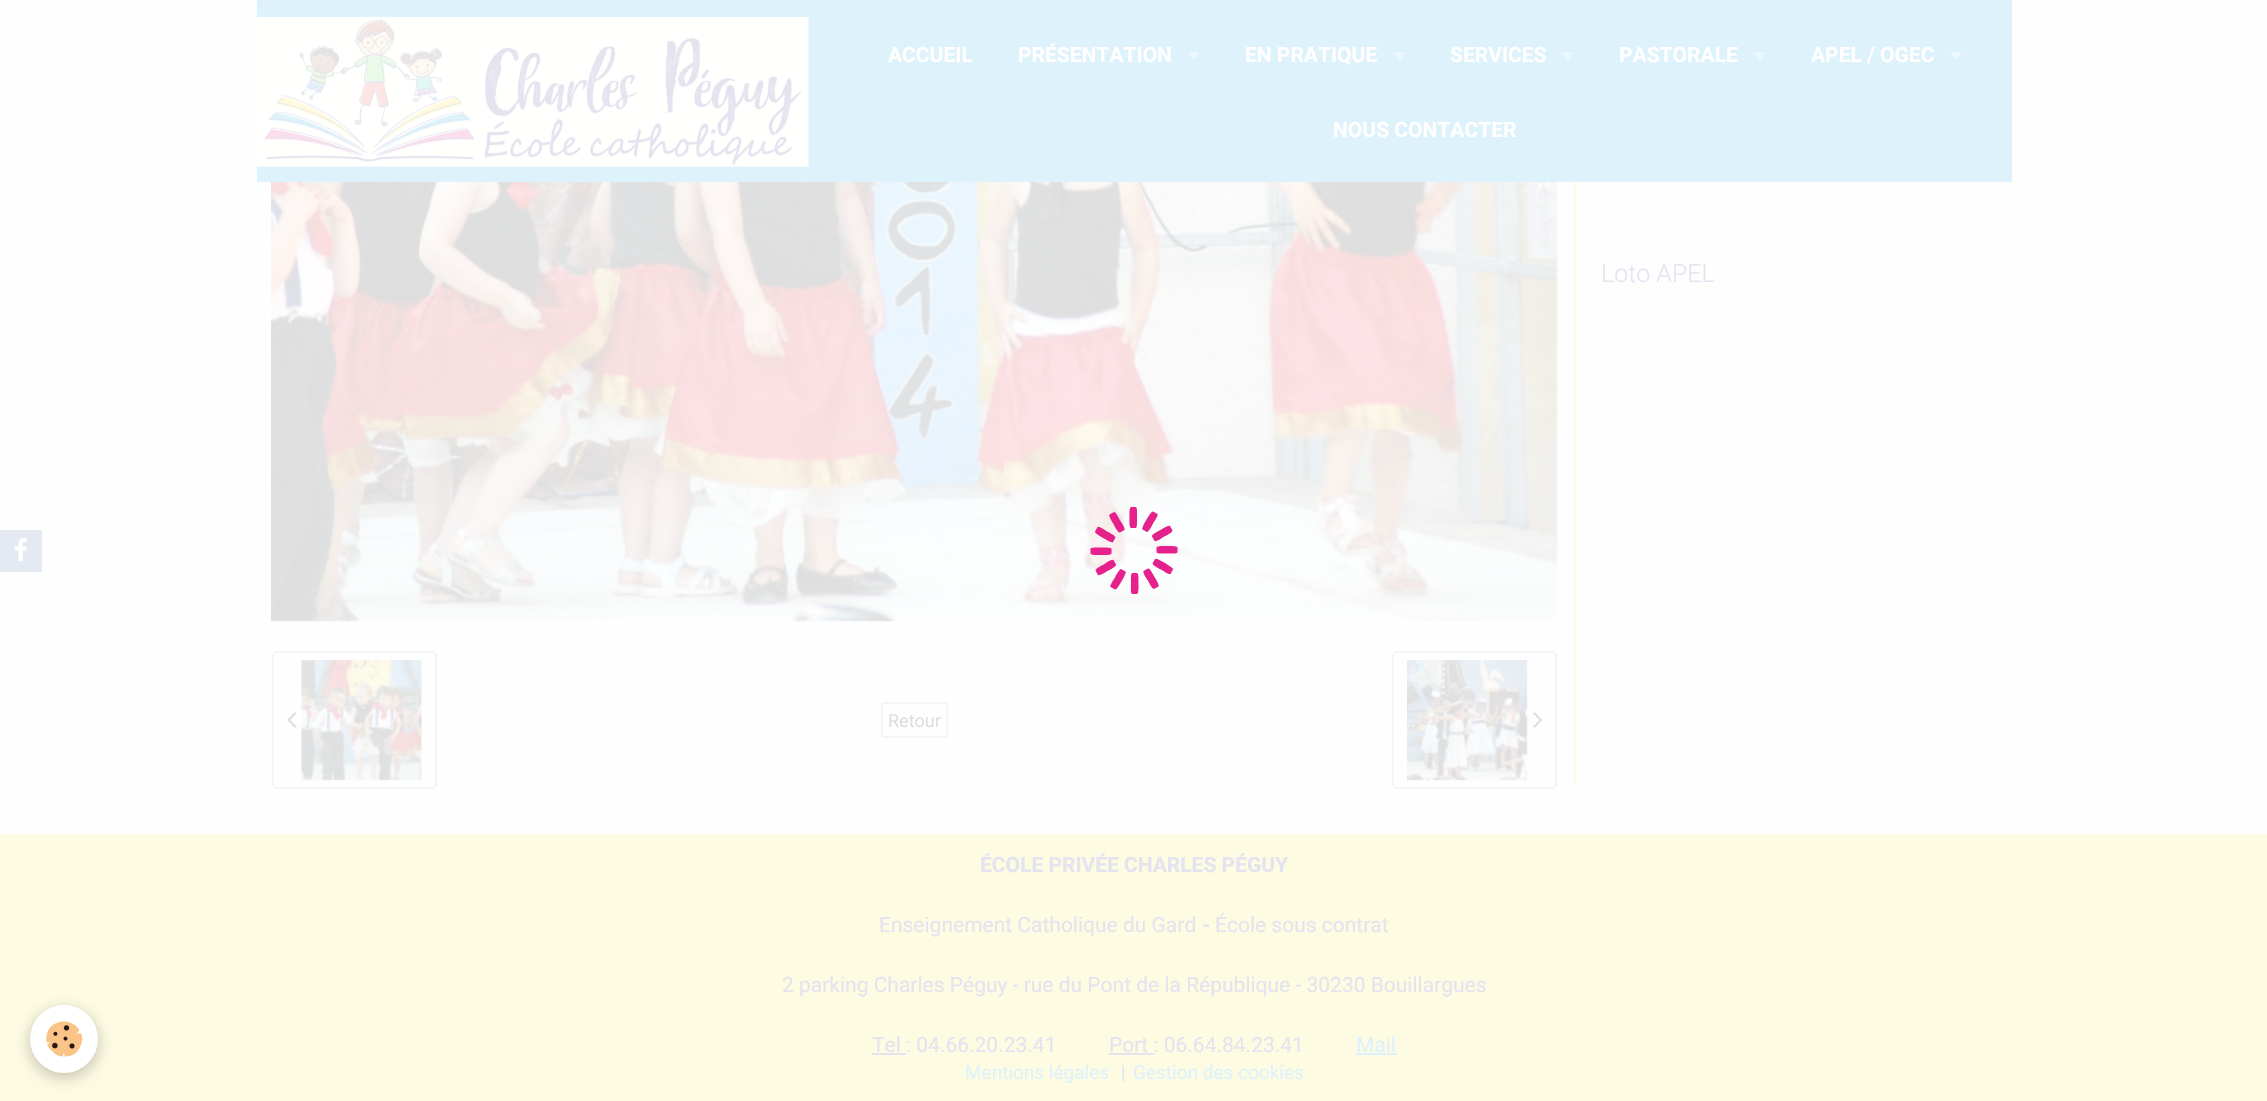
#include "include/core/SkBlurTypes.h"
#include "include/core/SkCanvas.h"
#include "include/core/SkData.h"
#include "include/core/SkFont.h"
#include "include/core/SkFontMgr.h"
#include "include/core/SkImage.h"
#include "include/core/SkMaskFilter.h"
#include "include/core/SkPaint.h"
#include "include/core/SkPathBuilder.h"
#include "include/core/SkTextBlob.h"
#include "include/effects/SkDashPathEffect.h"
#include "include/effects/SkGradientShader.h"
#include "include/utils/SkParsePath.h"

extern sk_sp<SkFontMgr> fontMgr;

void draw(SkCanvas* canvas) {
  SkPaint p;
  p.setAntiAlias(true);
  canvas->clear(SkColorSetRGB(254, 254, 254));
  p.setColor(SkColorSetRGB(222, 242, 251));
  canvas->drawRect(SkRect::MakeLTRB(257, 2, 2012, 182), p);
  p.setColor(SkColorSetRGB(222, 240, 248));
  canvas->drawRect(SkRect::MakeLTRB(257, 0, 2012, 2), p);
  canvas->drawImageRect(SkImages::DeferredFromEncodedData(SkData::MakeFromFileName("images/1.png")), SkRect::MakeLTRB(256, 17, 809, 167), SkSamplingOptions());
  p.setColor(SkColorSetRGB(238, 249, 253));
  canvas->drawPath(SkPathBuilder().moveTo(1188, 52.5f).lineTo(1200, 52.5f).lineTo(1194, 60).close().detach(), p);
  canvas->drawPath(SkPathBuilder().moveTo(1393.5f, 52.5f).lineTo(1405.5f, 52.5f).lineTo(1399.5f, 60).close().detach(), p);
  canvas->drawPath(SkPathBuilder().moveTo(1561.5f, 52.5f).lineTo(1573.5f, 52.5f).lineTo(1567.5f, 60).close().detach(), p);
  canvas->drawPath(SkPathBuilder().moveTo(1753.5f, 52.5f).lineTo(1765.5f, 52.5f).lineTo(1759.5f, 60).close().detach(), p);
  canvas->drawPath(SkPathBuilder().moveTo(1950, 52.5f).lineTo(1962, 52.5f).lineTo(1956, 60).close().detach(), p);
  p.setColor(SkColorSetRGB(254, 251, 227));
  canvas->drawRect(SkRect::MakeLTRB(1574, 182, 1576, 785), p);
  canvas->drawImageRect(SkImages::DeferredFromEncodedData(SkData::MakeFromFileName("images/2.png")), SkRect::MakeLTRB(271, 182, 1558, 622), SkSamplingOptions());
  canvas->drawImageRect(SkImages::DeferredFromEncodedData(SkData::MakeFromFileName("images/3.png")), SkRect::MakeLTRB(287, 712, 297, 728), SkSamplingOptions());
  canvas->drawImageRect(SkImages::DeferredFromEncodedData(SkData::MakeFromFileName("images/4.png")), SkRect::MakeLTRB(301, 660, 422, 781), SkSamplingOptions());
  p.setStyle(SkPaint::kStroke_Style);
  p.setStrokeWidth(2);
  p.setColor(SkColorSetRGB(245, 245, 245));
  canvas->drawRoundRect(SkRect::MakeLTRB(273, 652, 436, 788), 4, 4, p);
  canvas->drawRoundRect(SkRect::MakeLTRB(882, 703, 947, 737), 2, 2, p);
  canvas->drawImageRect(SkImages::DeferredFromEncodedData(SkData::MakeFromFileName("images/5.png")), SkRect::MakeLTRB(1407, 660, 1528, 781), SkSamplingOptions());
  canvas->drawImageRect(SkImages::DeferredFromEncodedData(SkData::MakeFromFileName("images/6.png")), SkRect::MakeLTRB(1533, 712, 1543, 728), SkSamplingOptions());
  canvas->drawRoundRect(SkRect::MakeLTRB(1393, 652, 1556, 788), 4, 4, p);
  p.setStyle(SkPaint::kFill_Style);
  p.setColor(SkColorSetRGB(229, 233, 242));
  canvas->drawRect(SkRect::MakeLTRB(0, 530, 42, 572), p);
  canvas->drawImageRect(SkImages::DeferredFromEncodedData(SkData::MakeFromFileName("images/7.png")), SkRect::MakeLTRB(14, 537, 27, 562), SkSamplingOptions());
  p.setColor(SkColorSetRGB(229, 34, 140));
  canvas->drawPath(SkPathBuilder().moveTo(1115, 589.5f).lineTo(1110.5f, 587).cubicTo(1109.5f, 585.5f, 1114, 579, 1115, 577.5f).cubicTo(1115.5f, 576.5f, 1119, 569, 1121, 569).lineTo(1125.5f, 571.5f).cubicTo(1127, 572.5f, 1122, 580.5f, 1121.5f, 581.5f).cubicTo(1121, 582, 1116.5f, 590.5f, 1115, 589.5f).close().detach(), p);
  p.setColor(SkColorSetARGB(222, 226, 1, 123));
  canvas->drawPath(SkPathBuilder().moveTo(1098, 575).lineTo(1095.5f, 570.5f).cubicTo(1095.5f, 568.5f, 1102.5f, 565, 1104, 564.5f).cubicTo(1105, 563.5f, 1111.5f, 559, 1113.5f, 560).lineTo(1116, 564.5f).cubicTo(1117, 566.5f, 1108.5f, 570.5f, 1107.5f, 571).cubicTo(1107, 571.5f, 1099, 576.5f, 1098, 575).close().moveTo(1090.5f, 553.5f).lineTo(1090.5f, 548.5f).cubicTo(1091.5f, 547, 1099.5f, 547.5f, 1101, 547.5f).cubicTo(1102.5f, 547.5f, 1110.5f, 547, 1111.5f, 548.5f).lineTo(1111.5f, 553.5f).cubicTo(1111.5f, 555.5f, 1102, 555, 1101, 555).cubicTo(1100, 555, 1090.5f, 555.5f, 1090.5f, 553.5f).close().moveTo(1095, 531.5f).lineTo(1097.5f, 527).cubicTo(1099, 526, 1105.5f, 530.5f, 1107, 531.5f).cubicTo(1108, 532, 1115.5f, 535.5f, 1115.5f, 537.5f).lineTo(1113, 542).cubicTo(1112, 543.5f, 1104, 538.5f, 1103, 538).cubicTo(1102.5f, 537.5f, 1094, 533, 1095, 531.5f).close().detach(), p);
  canvas->drawPath(SkPathBuilder().moveTo(1109.5f, 514.5f).lineTo(1114, 512).cubicTo(1116, 512, 1119.5f, 519, 1120, 520.5f).cubicTo(1121, 521.5f, 1125.5f, 528, 1124.5f, 530).lineTo(1120, 532.5f).cubicTo(1118, 533.5f, 1114, 525, 1113.5f, 524).cubicTo(1113, 523.5f, 1108, 515.5f, 1109.5f, 514.5f).close().detach(), p);
  canvas->drawPath(SkPathBuilder().moveTo(1131, 507).lineTo(1136, 507).cubicTo(1137.5f, 508, 1137, 516, 1137, 517.5f).cubicTo(1137, 519, 1137.5f, 527, 1136, 528).lineTo(1131, 528).cubicTo(1129, 528, 1129.5f, 518.5f, 1129.5f, 517.5f).cubicTo(1129.5f, 516.5f, 1129, 507, 1131, 507).close().detach(), p);
  p.setColor(SkColorSetRGB(229, 34, 140));
  canvas->drawPath(SkPathBuilder().moveTo(1153, 511.5f).lineTo(1157.5f, 514).cubicTo(1158.5f, 515.5f, 1154, 522, 1153, 523.5f).cubicTo(1152.5f, 524.5f, 1149, 532, 1147, 532).lineTo(1142.5f, 529.5f).cubicTo(1141, 528.5f, 1146, 520.5f, 1146.5f, 519.5f).cubicTo(1147, 519, 1151.5f, 510.5f, 1153, 511.5f).close().detach(), p);
  canvas->drawPath(SkPathBuilder().moveTo(1170, 526).lineTo(1172.5f, 530.5f).cubicTo(1172.5f, 532.5f, 1165.5f, 536, 1164, 536.5f).cubicTo(1163, 537.5f, 1156.5f, 542, 1154.5f, 541).lineTo(1152, 536.5f).cubicTo(1151, 534.5f, 1159.5f, 530.5f, 1160.5f, 530).cubicTo(1161, 529.5f, 1169, 524.5f, 1170, 526).close().detach(), p);
  p.setColor(SkColorSetARGB(222, 226, 1, 123));
  canvas->drawPath(SkPathBuilder().moveTo(1177.5f, 547.5f).lineTo(1177.5f, 552.5f).cubicTo(1176.5f, 554, 1168.5f, 553.5f, 1167, 553.5f).cubicTo(1165.5f, 553.5f, 1157.5f, 554, 1156.5f, 552.5f).lineTo(1156.5f, 547.5f).cubicTo(1156.5f, 545.5f, 1166, 546, 1167, 546).cubicTo(1168, 546, 1177.5f, 545.5f, 1177.5f, 547.5f).close().detach(), p);
  canvas->drawPath(SkPathBuilder().moveTo(1137, 594).lineTo(1132, 594).cubicTo(1130.5f, 593, 1131, 585, 1131, 583.5f).cubicTo(1131, 582, 1130.5f, 574, 1132, 573).lineTo(1137, 573).cubicTo(1139, 573, 1138.5f, 582.5f, 1138.5f, 583.5f).cubicTo(1138.5f, 584.5f, 1139, 594, 1137, 594).close().detach(), p);
  p.setColor(SkColorSetRGB(229, 34, 140));
  canvas->drawPath(SkPathBuilder().moveTo(1173, 569.5f).lineTo(1170.5f, 574).cubicTo(1169, 575, 1162.5f, 570.5f, 1161, 569.5f).cubicTo(1160, 569, 1152.5f, 565.5f, 1152.5f, 563.5f).lineTo(1155, 559).cubicTo(1156, 557.5f, 1164, 562.5f, 1165, 563).cubicTo(1165.5f, 563.5f, 1174, 568, 1173, 569.5f).close().detach(), p);
  canvas->drawPath(SkPathBuilder().moveTo(1158.5f, 586.5f).lineTo(1154, 589).cubicTo(1152, 589, 1148.5f, 582, 1148, 580.5f).cubicTo(1147, 579.5f, 1142.5f, 573, 1143.5f, 571).lineTo(1148, 568.5f).cubicTo(1150, 567.5f, 1154, 576, 1154.5f, 577).cubicTo(1155, 577.5f, 1160, 585.5f, 1158.5f, 586.5f).close().detach(), p);
  p.setColor(SkColorSetRGB(254, 251, 227));
  canvas->drawRect(SkRect::MakeLTRB(0, 834, 2267, 1101), p);
  p.setColor(SkColorSetARGB(61, 0, 0, 0));
  p.setMaskFilter(SkMaskFilter::MakeBlur(kNormal_SkBlurStyle, 7.5f));
  canvas->drawRoundRect(SkRect::MakeLTRB(30, 1010, 98, 1077), 33.5f, 33.5f, p);
  p.setMaskFilter(nullptr);
  p.setColor(SK_ColorWHITE);
  canvas->drawCircle(64, 1039, 34, p);
  canvas->drawImageRect(SkImages::DeferredFromEncodedData(SkData::MakeFromFileName("images/8.png")), SkRect::MakeLTRB(46, 1021, 83, 1057), SkSamplingOptions());
  p.setColor(SkColorSetRGB(227, 228, 239));
  canvas->drawRect(SkRect::MakeLTRB(872, 1053, 906, 1055), p);
  canvas->drawRect(SkRect::MakeLTRB(1109, 1053, 1154, 1055), p);
  p.setColor(SkColorSetRGB(222, 242, 251));
  canvas->drawRect(SkRect::MakeLTRB(1356, 1053, 1397, 1055), p);
  SkFont font1(fontMgr->matchFamilyStyle("Roboto", SkFontStyle::Bold()), 21);
  font1.setSubpixel(true);
  p.setColor(SK_ColorWHITE);
  canvas->drawString("ACCUEIL", 888, 62, font1, p);
  canvas->drawString("PRÉSENTATION", 1018, 62, font1, p);
  canvas->drawString("EN PRATIQUE", 1245, 62, font1, p);
  canvas->drawString("SERVICES", 1450, 62, font1, p);
  canvas->drawString("PASTORALE", 1619, 62, font1, p);
  canvas->drawString("APEL / OGEC", 1811, 62, font1, p);
  canvas->drawString("NOUS CONTACTER", 1333, 137, font1, p);
  SkFont font2(fontMgr->matchFamilyStyle("Roboto", SkFontStyle(300, SkFontStyle::kNormal_Width, SkFontStyle::kUpright_Slant)), 25);
  font2.setSubpixel(true);
  p.setColor(SkColorSetRGB(227, 228, 239));
  canvas->drawString("Loto APEL", 1601, 282, font2, p);
  SkFont font3(fontMgr->matchFamilyStyle("Roboto", SkFontStyle::Normal()), 18);
  font3.setSubpixel(true);
  p.setColor(SkColorSetRGB(222, 222, 222));
  canvas->drawString("Retour", 888, 727, font3, p);
  p.setColor(SkColorSetRGB(227, 228, 239));
  canvas->drawString("ÉCOLE PRIVÉE CHARLES PÉGUY", 980, 872, font1, p);
  SkFont font4(fontMgr->matchFamilyStyle("Roboto", SkFontStyle::Normal()), 21);
  font4.setSubpixel(true);
  canvas->drawString("Enseignement Catholique du Gard", 879, 932, font4, p);
  canvas->drawString("-", 1202, 932, font1, p);
  canvas->drawString("École sous contrat", 1215, 932, font4, p);
  canvas->drawString("2 parking Charles Péguy - rue du Pont de la République - 30230 Bouillargues", 782, 992, font4, p);
  canvas->drawString("Tel : 04.66.20.23.41", 872, 1052, font4, p);
  canvas->drawString("Port : 06.64.84.23.41", 1109, 1052, font4, p);
  p.setColor(SkColorSetRGB(222, 242, 251));
  canvas->drawString("Mail", 1356, 1052, font4, p);
  SkFont font5(fontMgr->matchFamilyStyle("Roboto", SkFontStyle::Normal()), 19);
  font5.setSubpixel(true);
  canvas->drawString("Mentions légales", 965, 1079, font5, p);
  p.setColor(SkColorSetRGB(227, 228, 239));
  canvas->drawString("|", 1121, 1079, font5, p);
  p.setColor(SkColorSetRGB(222, 242, 251));
  canvas->drawString("Gestion des cookies", 1133, 1079, font5, p);
}
